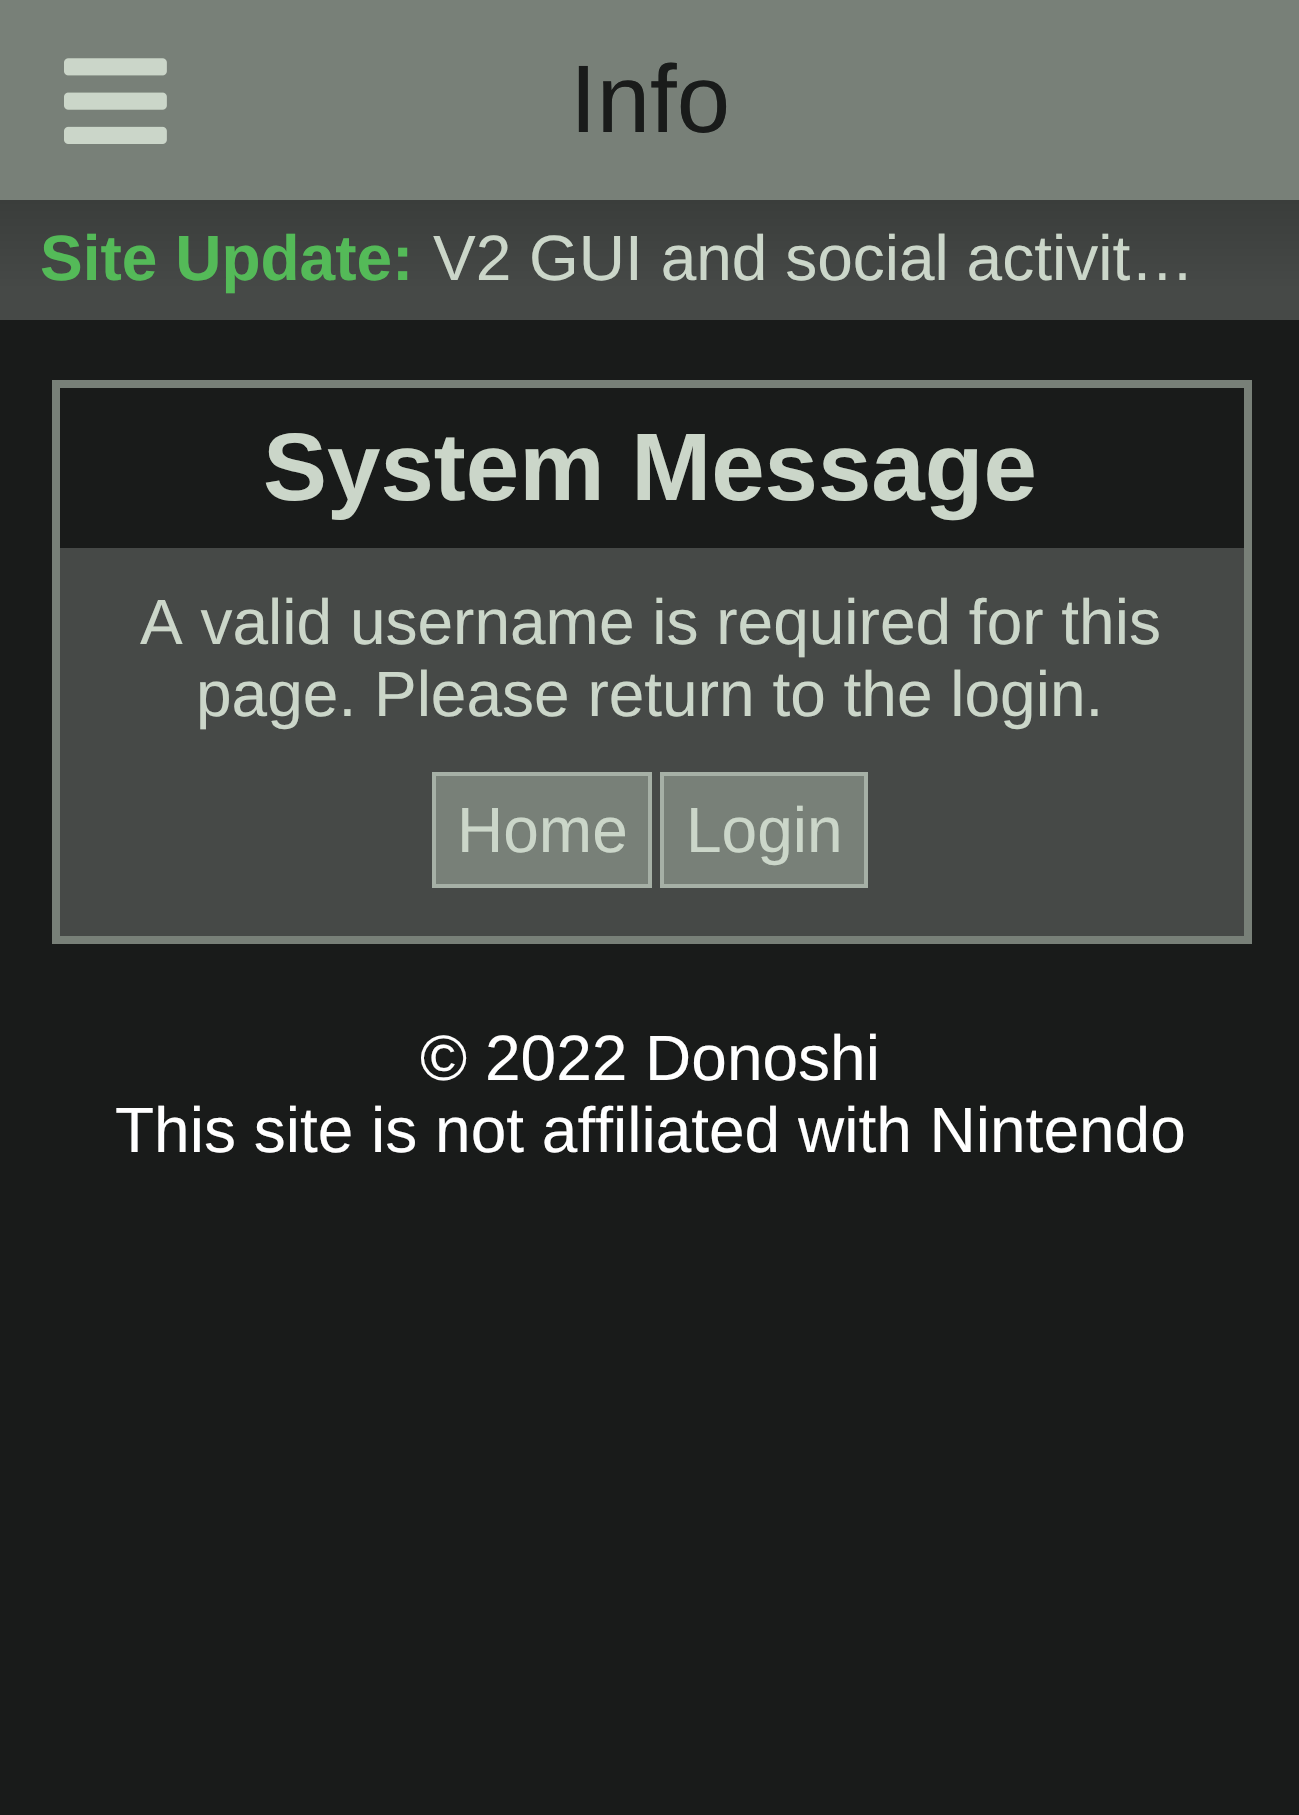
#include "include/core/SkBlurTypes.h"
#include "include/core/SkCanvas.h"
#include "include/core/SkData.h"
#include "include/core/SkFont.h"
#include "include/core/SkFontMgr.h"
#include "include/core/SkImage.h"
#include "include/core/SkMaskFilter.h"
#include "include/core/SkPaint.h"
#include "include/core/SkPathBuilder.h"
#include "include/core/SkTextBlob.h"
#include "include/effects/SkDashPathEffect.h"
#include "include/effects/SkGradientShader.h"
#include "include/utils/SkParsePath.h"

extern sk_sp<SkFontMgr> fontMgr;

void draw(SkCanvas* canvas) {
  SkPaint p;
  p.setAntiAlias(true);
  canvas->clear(SkColorSetRGB(25, 27, 26));
  p.setColor(SkColorSetRGB(120, 128, 120));
  canvas->drawRect(SkRect::MakeLTRB(0, 0, 1299, 200), p);
  canvas->drawImageRect(SkImages::DeferredFromEncodedData(SkData::MakeFromFileName("images/1.png")), SkRect::MakeLTRB(64, 58, 167, 144), SkSamplingOptions());
  {
    const SkColor colors[] = {SkColorSetRGB(58, 61, 59), SkColorSetRGB(70, 73, 71)};
    const float stops[] = {0, 0.75f};
    const SkPoint ends[] = {{650, 200}, {650, 320}};
    p.setShader(SkGradientShader::MakeLinear(ends, colors, stops, 2, SkTileMode::kClamp));
    p.setAlpha(255);
  }
  canvas->drawRect(SkRect::MakeLTRB(0, 200, 1299, 320), p);
  p.setShader(nullptr);
  p.setColor(SkColorSetRGB(70, 73, 71));
  canvas->drawRect(SkRect::MakeLTRB(60, 548, 1244, 936), p);
  p.setStyle(SkPaint::kStroke_Style);
  p.setStrokeWidth(8);
  p.setColor(SkColorSetRGB(120, 128, 120));
  canvas->drawRect(SkRect::MakeLTRB(56, 384, 1248, 940), p);
  p.setStyle(SkPaint::kFill_Style);
  canvas->drawRect(SkRect::MakeLTRB(436, 776, 648, 884), p);
  p.setStyle(SkPaint::kStroke_Style);
  p.setStrokeWidth(4);
  p.setColor(SkColorSetRGB(166, 176, 166));
  canvas->drawRect(SkRect::MakeLTRB(434, 774, 650, 886), p);
  p.setStyle(SkPaint::kFill_Style);
  p.setColor(SkColorSetRGB(120, 128, 120));
  canvas->drawRect(SkRect::MakeLTRB(664, 776, 864, 884), p);
  p.setStyle(SkPaint::kStroke_Style);
  p.setColor(SkColorSetRGB(166, 176, 166));
  canvas->drawRect(SkRect::MakeLTRB(662, 774, 866, 886), p);
  SkFont font1(fontMgr->matchFamilyStyle("Liberation Sans", SkFontStyle::Normal()), 96);
  font1.setSubpixel(true);
  p.setStyle(SkPaint::kFill_Style);
  p.setColor(SkColorSetRGB(25, 27, 26));
  canvas->drawString("Info", 570, 132, font1, p);
  SkFont font2(fontMgr->matchFamilyStyle("Liberation Sans", SkFontStyle::Bold()), 64);
  font2.setSubpixel(true);
  p.setColor(SkColorSetRGB(84, 186, 88));
  canvas->drawString("Site Update:", 40, 280, font2, p);
  SkFont font3(fontMgr->matchFamilyStyle("Liberation Sans", SkFontStyle::Normal()), 64);
  font3.setSubpixel(true);
  p.setColor(SkColorSetRGB(203, 214, 201));
  canvas->drawString("V2 GUI and social activit…", 433, 280, font3, p);
  SkFont font4(fontMgr->matchFamilyStyle("Liberation Sans", SkFontStyle::Bold()), 96);
  font4.setSubpixel(true);
  canvas->drawString("System Message", 263, 500, font4, p);
  canvas->drawString("A valid username is required for this", 140, 644, font3, p);
  canvas->drawString("page. Please return to the login.", 196, 716, font3, p);
  canvas->drawString("Home", 457, 852, font3, p);
  canvas->drawString("Login", 686, 852, font3, p);
  p.setColor(SK_ColorWHITE);
  canvas->drawString("© 2022 Donoshi", 420, 1080, font3, p);
  canvas->drawString("This site is not affiliated with Nintendo", 115, 1152, font3, p);
}
